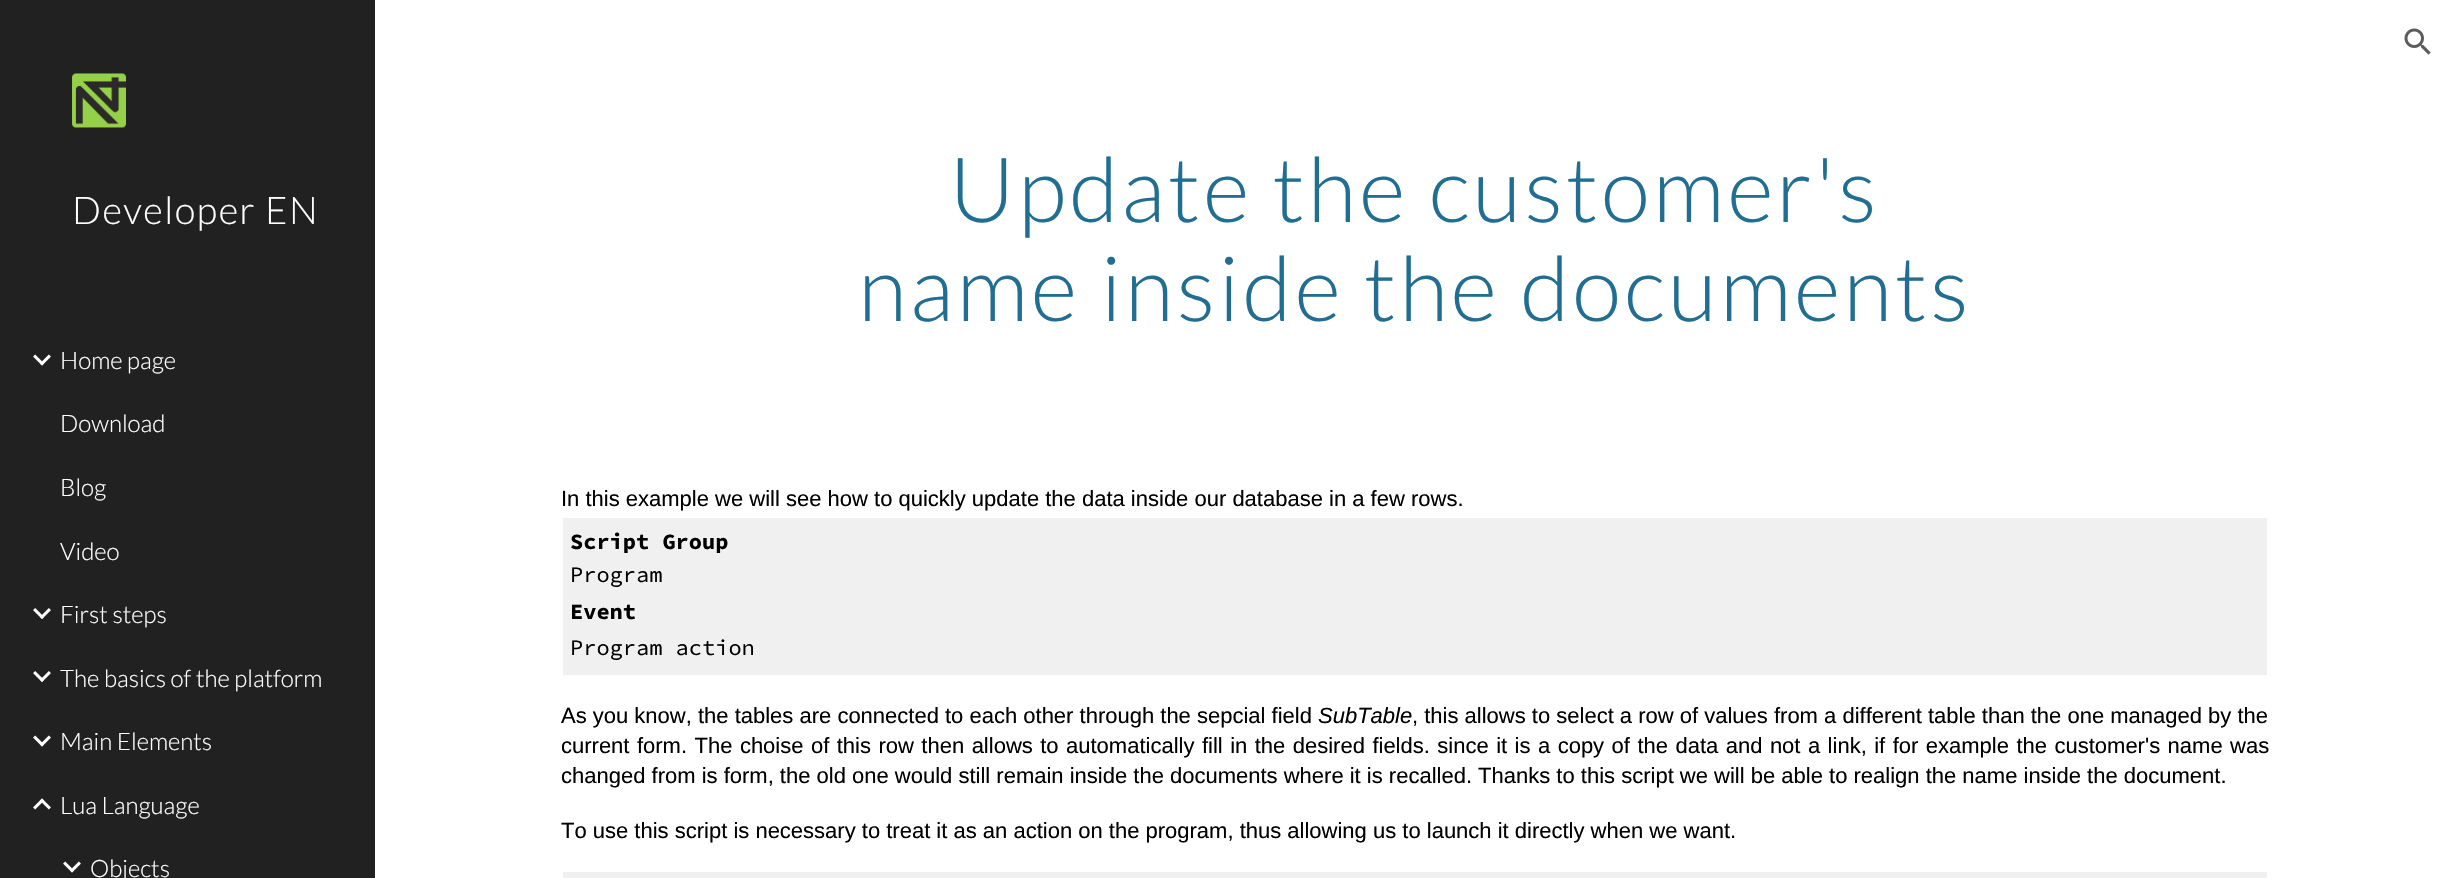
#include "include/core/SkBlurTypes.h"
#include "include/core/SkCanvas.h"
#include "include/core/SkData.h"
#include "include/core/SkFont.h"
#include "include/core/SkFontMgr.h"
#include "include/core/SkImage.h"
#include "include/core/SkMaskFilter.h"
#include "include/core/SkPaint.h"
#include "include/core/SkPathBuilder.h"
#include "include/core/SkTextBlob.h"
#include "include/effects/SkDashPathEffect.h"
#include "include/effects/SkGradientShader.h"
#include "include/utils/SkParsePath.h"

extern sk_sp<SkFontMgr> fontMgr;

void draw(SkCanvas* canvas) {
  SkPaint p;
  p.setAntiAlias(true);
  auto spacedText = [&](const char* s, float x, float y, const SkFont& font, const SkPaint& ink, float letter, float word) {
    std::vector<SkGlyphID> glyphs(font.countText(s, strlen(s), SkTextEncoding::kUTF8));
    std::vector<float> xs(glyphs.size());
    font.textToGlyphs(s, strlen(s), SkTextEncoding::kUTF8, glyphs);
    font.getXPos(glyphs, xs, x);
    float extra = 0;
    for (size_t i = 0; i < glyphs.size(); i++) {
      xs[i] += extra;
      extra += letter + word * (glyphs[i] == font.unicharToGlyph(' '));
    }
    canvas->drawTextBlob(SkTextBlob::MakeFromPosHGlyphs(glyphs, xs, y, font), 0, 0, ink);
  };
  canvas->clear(SK_ColorWHITE);
  canvas->drawImageRect(SkImages::DeferredFromEncodedData(SkData::MakeFromFileName("images/1.png")), SkRect::MakeLTRB(2404, 28, 2431, 55), SkSamplingOptions());
  p.setColor(SkColorSetRGB(33, 33, 33));
  canvas->drawRect(SkRect::MakeLTRB(0, 0, 375, 878), p);
  canvas->drawImageRect(SkImages::DeferredFromEncodedData(SkData::MakeFromFileName("images/2.png")), SkRect::MakeLTRB(72, 73, 126, 128), SkSamplingOptions());
  canvas->drawImageRect(SkImages::DeferredFromEncodedData(SkData::MakeFromFileName("images/3.png")), SkRect::MakeLTRB(33, 354, 51, 366), SkSamplingOptions());
  canvas->drawImageRect(SkImages::DeferredFromEncodedData(SkData::MakeFromFileName("images/4.png")), SkRect::MakeLTRB(33, 608, 51, 619), SkSamplingOptions());
  canvas->drawImageRect(SkImages::DeferredFromEncodedData(SkData::MakeFromFileName("images/4.png")), SkRect::MakeLTRB(33, 671, 51, 682), SkSamplingOptions());
  canvas->drawImageRect(SkImages::DeferredFromEncodedData(SkData::MakeFromFileName("images/3.png")), SkRect::MakeLTRB(33, 735, 51, 747), SkSamplingOptions());
  canvas->drawImageRect(SkImages::DeferredFromEncodedData(SkData::MakeFromFileName("images/5.png")), SkRect::MakeLTRB(33, 798, 51, 810), SkSamplingOptions());
  canvas->drawImageRect(SkImages::DeferredFromEncodedData(SkData::MakeFromFileName("images/3.png")), SkRect::MakeLTRB(63, 861, 81, 873), SkSamplingOptions());
  p.setColor(SkColorSetRGB(240, 240, 240));
  canvas->drawRect(SkRect::MakeLTRB(563, 518, 2267, 675), p);
  canvas->drawRect(SkRect::MakeLTRB(563, 872, 2267, 878), p);
  SkFont font1(fontMgr->matchFamilyStyle("Lato", SkFontStyle(300, SkFontStyle::kNormal_Width, SkFontStyle::kUpright_Slant)), 38);
  font1.setSubpixel(true);
  p.setColor(SK_ColorWHITE);
  spacedText("Developer EN", 72, 224, font1, p, 1.5f, 0);
  SkFont font2(fontMgr->matchFamilyStyle("Lato", SkFontStyle(300, SkFontStyle::kNormal_Width, SkFontStyle::kUpright_Slant)), 24);
  font2.setSubpixel(true);
  canvas->drawString("Home page", 60, 369, font2, p);
  canvas->drawString("Download", 60, 432, font2, p);
  canvas->drawString("Blog", 60, 496, font2, p);
  canvas->drawString("Video", 60, 560, font2, p);
  canvas->drawString("First steps", 60, 623, font2, p);
  canvas->drawString("The basics of the platform", 60, 687, font2, p);
  canvas->drawString("Main Elements", 60, 750, font2, p);
  canvas->drawString("Lua Language", 60, 814, font2, p);
  canvas->drawString("Objects", 90, 877, font2, p);
  SkFont font3(fontMgr->matchFamilyStyle("Lato", SkFontStyle(300, SkFontStyle::kNormal_Width, SkFontStyle::kUpright_Slant)), 90);
  font3.setSubpixel(true);
  p.setColor(SkColorSetRGB(34, 110, 147));
  spacedText("Update the customer's", 949, 222, font3, p, 3, 0);
  spacedText("name inside the documents", 858, 321, font3, p, 3, 0);
  SkFont font4(fontMgr->matchFamilyStyle("Liberation Sans", SkFontStyle::Normal()), 22);
  font4.setSubpixel(true);
  p.setColor(SK_ColorBLACK);
  canvas->drawString("In this example we will see how to quickly update the data inside our database in a few rows.", 561, 506, font4, p);
  SkFont font5(fontMgr->matchFamilyStyle("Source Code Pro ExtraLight", SkFontStyle::Bold()), 22);
  font5.setSubpixel(true);
  canvas->drawString("Script Group", 570, 549, font5, p);
  SkFont font6(fontMgr->matchFamilyStyle("Source Code Pro ExtraLight", SkFontStyle::Normal()), 22);
  font6.setSubpixel(true);
  canvas->drawString("Program", 570, 582, font6, p);
  canvas->drawString("Event", 570, 619, font5, p);
  canvas->drawString("Program action", 570, 655, font6, p);
  canvas->drawString("As you know, the tables are connected to each other through the sepcial field", 561, 723, font4, p);
  SkFont font7(fontMgr->matchFamilyStyle("Liberation Sans", SkFontStyle::Italic()), 22);
  font7.setSubpixel(true);
  canvas->drawString("SubTable", 1318, 723, font7, p);
  canvas->drawString(", this allows to select a row of values from a different table than the one managed by the", 1412, 723, font4, p);
  spacedText("current form. The choise of this row then allows to automatically fill in the desired fields. since it is a copy of the data and not a link, if for example the customer's name was", 561, 753, font4, p, 0, 1.35f);
  canvas->drawString("changed from is form, the old one would still remain inside the documents where it is recalled. Thanks to this script we will be able to realign the name inside the document.", 561, 783, font4, p);
  canvas->drawString("To use this script is necessary to treat it as an action on the program, thus allowing us to launch it directly when we want.", 561, 838, font4, p);
}
